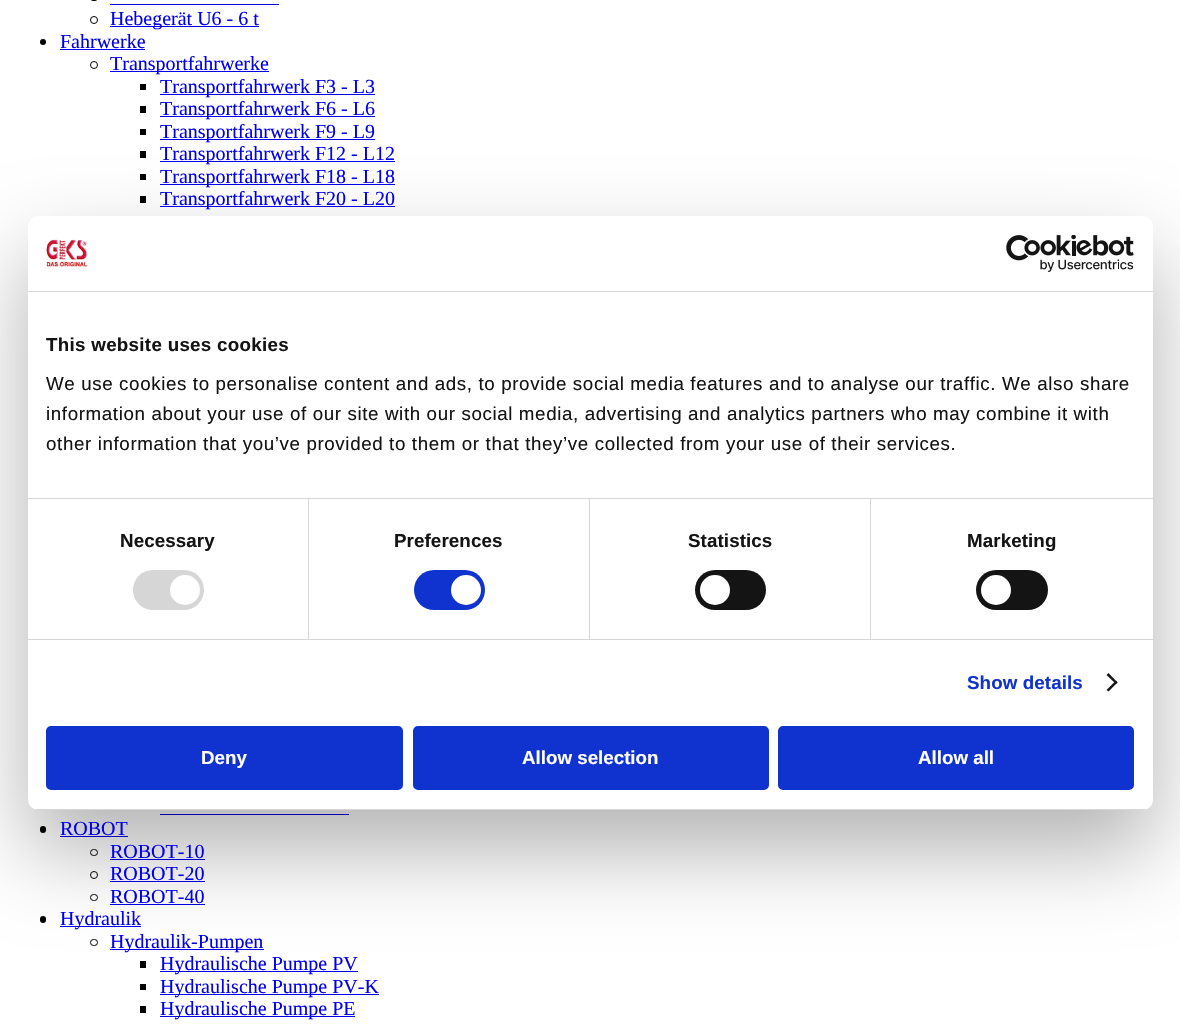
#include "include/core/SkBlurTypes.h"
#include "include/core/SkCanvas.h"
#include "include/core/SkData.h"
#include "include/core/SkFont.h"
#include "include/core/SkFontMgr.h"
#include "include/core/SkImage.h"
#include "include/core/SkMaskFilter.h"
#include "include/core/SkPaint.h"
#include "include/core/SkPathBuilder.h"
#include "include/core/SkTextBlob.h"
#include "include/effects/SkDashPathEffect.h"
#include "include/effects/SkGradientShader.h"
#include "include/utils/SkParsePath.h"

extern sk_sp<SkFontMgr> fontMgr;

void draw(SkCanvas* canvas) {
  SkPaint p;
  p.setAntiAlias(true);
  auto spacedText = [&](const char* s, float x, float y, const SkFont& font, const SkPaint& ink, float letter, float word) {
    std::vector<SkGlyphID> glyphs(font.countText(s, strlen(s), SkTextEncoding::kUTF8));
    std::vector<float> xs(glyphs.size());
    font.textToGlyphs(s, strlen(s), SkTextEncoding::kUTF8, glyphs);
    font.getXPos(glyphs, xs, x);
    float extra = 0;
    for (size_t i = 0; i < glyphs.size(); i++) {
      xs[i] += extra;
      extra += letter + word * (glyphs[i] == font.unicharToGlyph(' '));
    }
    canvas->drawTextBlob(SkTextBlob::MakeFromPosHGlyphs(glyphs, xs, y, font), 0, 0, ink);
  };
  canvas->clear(SK_ColorWHITE);
  p.setStyle(SkPaint::kStroke_Style);
  p.setStrokeWidth(1);
  p.setColor(SK_ColorBLACK);
  canvas->drawRoundRect(SkRect::MakeLTRB(90.5f, -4.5f, 97.5f, 0.5f), 3, 3, p);
  p.setStyle(SkPaint::kFill_Style);
  p.setColor(SkColorSetRGB(0, 0, 238));
  canvas->drawRect(SkRect::MakeLTRB(110, 4, 279, 5), p);
  p.setStyle(SkPaint::kStroke_Style);
  p.setColor(SK_ColorBLACK);
  canvas->drawCircle(94, 20, 3.5f, p);
  p.setStyle(SkPaint::kFill_Style);
  p.setColor(SkColorSetRGB(0, 0, 238));
  canvas->drawRect(SkRect::MakeLTRB(110, 26, 259, 27), p);
  p.setColor(SK_ColorBLACK);
  canvas->drawCircle(43, 42, 3, p);
  p.setColor(SkColorSetRGB(0, 0, 238));
  canvas->drawRect(SkRect::MakeLTRB(60, 49, 145, 50), p);
  p.setStyle(SkPaint::kStroke_Style);
  p.setColor(SK_ColorBLACK);
  canvas->drawCircle(94, 65, 3.5f, p);
  p.setStyle(SkPaint::kFill_Style);
  p.setColor(SkColorSetRGB(0, 0, 238));
  canvas->drawRect(SkRect::MakeLTRB(110, 71, 269, 72), p);
  p.setColor(SK_ColorBLACK);
  canvas->drawRect(SkRect::MakeLTRB(140, 84, 146, 90), p);
  p.setColor(SkColorSetRGB(0, 0, 238));
  canvas->drawRect(SkRect::MakeLTRB(160, 94, 375, 95), p);
  p.setColor(SK_ColorBLACK);
  canvas->drawRect(SkRect::MakeLTRB(140, 106, 146, 113), p);
  p.setColor(SkColorSetRGB(0, 0, 238));
  canvas->drawRect(SkRect::MakeLTRB(160, 116, 375, 117), p);
  p.setColor(SK_ColorBLACK);
  canvas->drawRect(SkRect::MakeLTRB(140, 129, 146, 135), p);
  p.setColor(SkColorSetRGB(0, 0, 238));
  canvas->drawRect(SkRect::MakeLTRB(160, 139, 375, 140), p);
  p.setColor(SK_ColorBLACK);
  canvas->drawRect(SkRect::MakeLTRB(140, 151, 146, 158), p);
  p.setColor(SkColorSetRGB(0, 0, 238));
  canvas->drawRect(SkRect::MakeLTRB(160, 161, 395, 162), p);
  p.setColor(SK_ColorBLACK);
  canvas->drawRect(SkRect::MakeLTRB(140, 174, 146, 180), p);
  p.setColor(SkColorSetRGB(0, 0, 238));
  canvas->drawRect(SkRect::MakeLTRB(160, 184, 395, 185), p);
  p.setColor(SK_ColorBLACK);
  canvas->drawRect(SkRect::MakeLTRB(140, 196, 146, 203), p);
  p.setColor(SkColorSetRGB(0, 0, 238));
  canvas->drawRect(SkRect::MakeLTRB(160, 206, 395, 207), p);
  canvas->drawRect(SkRect::MakeLTRB(160, 814, 349, 815), p);
  p.setColor(SK_ColorBLACK);
  canvas->drawRoundRect(SkRect::MakeLTRB(40, 826, 46, 833), 3, 3, p);
  p.setColor(SkColorSetRGB(0, 0, 238));
  canvas->drawRect(SkRect::MakeLTRB(60, 836, 128, 837), p);
  p.setStyle(SkPaint::kStroke_Style);
  p.setColor(SK_ColorBLACK);
  canvas->drawRoundRect(SkRect::MakeLTRB(90.5f, 849.5f, 97.5f, 855.5f), 3, 3, p);
  p.setStyle(SkPaint::kFill_Style);
  p.setColor(SkColorSetRGB(0, 0, 238));
  canvas->drawRect(SkRect::MakeLTRB(110, 859, 205, 860), p);
  p.setStyle(SkPaint::kStroke_Style);
  p.setColor(SK_ColorBLACK);
  canvas->drawCircle(94, 875, 3.5f, p);
  p.setStyle(SkPaint::kFill_Style);
  p.setColor(SkColorSetRGB(0, 0, 238));
  canvas->drawRect(SkRect::MakeLTRB(110, 881, 205, 882), p);
  p.setStyle(SkPaint::kStroke_Style);
  p.setColor(SK_ColorBLACK);
  canvas->drawRoundRect(SkRect::MakeLTRB(90.5f, 894.5f, 97.5f, 900.5f), 3, 3, p);
  p.setStyle(SkPaint::kFill_Style);
  p.setColor(SkColorSetRGB(0, 0, 238));
  canvas->drawRect(SkRect::MakeLTRB(110, 904, 205, 905), p);
  p.setColor(SK_ColorBLACK);
  canvas->drawRoundRect(SkRect::MakeLTRB(40, 916, 46, 923), 3, 3, p);
  p.setColor(SkColorSetRGB(0, 0, 238));
  canvas->drawRect(SkRect::MakeLTRB(60, 926, 141, 927), p);
  p.setStyle(SkPaint::kStroke_Style);
  p.setColor(SK_ColorBLACK);
  canvas->drawRoundRect(SkRect::MakeLTRB(90.5f, 939.5f, 97.5f, 945.5f), 3, 3, p);
  p.setStyle(SkPaint::kFill_Style);
  p.setColor(SkColorSetRGB(0, 0, 238));
  canvas->drawRect(SkRect::MakeLTRB(110, 949, 264, 950), p);
  p.setColor(SK_ColorBLACK);
  canvas->drawRect(SkRect::MakeLTRB(140, 961, 146, 968), p);
  p.setColor(SkColorSetRGB(0, 0, 238));
  canvas->drawRect(SkRect::MakeLTRB(160, 971, 358, 972), p);
  p.setColor(SK_ColorBLACK);
  canvas->drawRect(SkRect::MakeLTRB(140, 984, 146, 990), p);
  p.setColor(SkColorSetRGB(0, 0, 238));
  canvas->drawRect(SkRect::MakeLTRB(160, 994, 379, 995), p);
  p.setColor(SK_ColorBLACK);
  canvas->drawRect(SkRect::MakeLTRB(140, 1006, 146, 1013), p);
  p.setColor(SkColorSetRGB(0, 0, 238));
  canvas->drawRect(SkRect::MakeLTRB(160, 1016, 355, 1017), p);
  p.setColor(SkColorSetARGB(77, 0, 0, 0));
  p.setMaskFilter(SkMaskFilter::MakeBlur(kNormal_SkBlurStyle, 42.5f));
  canvas->drawRoundRect(SkRect::MakeLTRB(28, 256, 1153, 850), 10, 10, p);
  p.setMaskFilter(nullptr);
  p.setColor(SK_ColorWHITE);
  canvas->drawRoundRect(SkRect::MakeLTRB(28, 216, 1153, 810), 10, 10, p);
  p.setColor(SkColorSetRGB(214, 214, 214));
  canvas->drawRect(SkRect::MakeLTRB(28, 291, 1153, 292), p);
  canvas->drawImageRect(SkImages::DeferredFromEncodedData(SkData::MakeFromFileName("images/1.png")), SkRect::MakeLTRB(46, 239, 88, 267), SkSamplingOptions());
  canvas->drawImageRect(SkImages::DeferredFromEncodedData(SkData::MakeFromFileName("images/2.png")), SkRect::MakeLTRB(1006, 235, 1134, 272), SkSamplingOptions());
  canvas->drawRect(SkRect::MakeLTRB(28, 498, 1153, 499), p);
  canvas->drawRect(SkRect::MakeLTRB(28, 639, 1153, 640), p);
  canvas->drawRect(SkRect::MakeLTRB(308, 499, 309, 639), p);
  canvas->drawRoundRect(SkRect::MakeLTRB(133, 570, 204, 610), 20, 20, p);
  p.setColor(SK_ColorWHITE);
  canvas->drawCircle(185, 590, 15, p);
  p.setColor(SkColorSetRGB(214, 214, 214));
  canvas->drawRect(SkRect::MakeLTRB(589, 499, 590, 639), p);
  p.setColor(SkColorSetRGB(16, 50, 207));
  canvas->drawRoundRect(SkRect::MakeLTRB(414, 570, 485, 610), 20, 20, p);
  p.setColor(SK_ColorWHITE);
  canvas->drawCircle(466, 590, 15, p);
  p.setColor(SkColorSetRGB(214, 214, 214));
  canvas->drawRect(SkRect::MakeLTRB(870, 499, 871, 639), p);
  p.setColor(SkColorSetRGB(20, 20, 20));
  canvas->drawRoundRect(SkRect::MakeLTRB(695, 570, 766, 610), 20, 20, p);
  p.setColor(SK_ColorWHITE);
  canvas->drawCircle(715, 590, 15, p);
  p.setColor(SkColorSetRGB(20, 20, 20));
  canvas->drawRoundRect(SkRect::MakeLTRB(976, 570, 1048, 610), 20, 20, p);
  p.setColor(SK_ColorWHITE);
  canvas->drawCircle(996, 590, 15, p);
  p.setColor(SkColorSetRGB(20, 20, 20));
  canvas->drawPath(SkPathBuilder().moveTo(1108.5f, 673).lineTo(1117.5f, 682.5f).lineTo(1116, 684).lineTo(1106.5f, 675).close().detach(), p);
  canvas->drawPath(SkPathBuilder().moveTo(1116, 680.5f).lineTo(1117.5f, 682.5f).lineTo(1108.5f, 691.5f).lineTo(1106.5f, 690).close().detach(), p);
  canvas->save();
  canvas->clipPath(SkPathBuilder().moveTo(38, 216).lineTo(1143, 216).cubicTo(1148.5f, 216, 1153, 220.5f, 1153, 226).lineTo(1153, 800).cubicTo(1153, 805.5f, 1148.5f, 810, 1143, 810).lineTo(38, 810).cubicTo(32.5f, 810, 28, 805.5f, 28, 800).lineTo(28, 226).cubicTo(28, 220.5f, 32.5f, 216, 38, 216).close().detach(), true);
  p.setColor(SkColorSetRGB(214, 214, 214));
  canvas->drawRect(SkRect::MakeLTRB(28, 809, 1153, 810), p);
  canvas->restore();
  p.setColor(SkColorSetRGB(16, 50, 207));
  canvas->drawRoundRect(SkRect::MakeLTRB(47.5f, 727.5f, 401.5f, 788.5f), 3.5f, 3.5f, p);
  p.setStyle(SkPaint::kStroke_Style);
  p.setStrokeWidth(3);
  canvas->drawRoundRect(SkRect::MakeLTRB(47.5f, 727.5f, 401.5f, 788.5f), 3.5f, 3.5f, p);
  p.setStyle(SkPaint::kFill_Style);
  canvas->drawRoundRect(SkRect::MakeLTRB(414.5f, 727.5f, 767.5f, 788.5f), 3.5f, 3.5f, p);
  p.setStyle(SkPaint::kStroke_Style);
  canvas->drawRoundRect(SkRect::MakeLTRB(414.5f, 727.5f, 767.5f, 788.5f), 3.5f, 3.5f, p);
  p.setStyle(SkPaint::kFill_Style);
  canvas->drawRoundRect(SkRect::MakeLTRB(779.5f, 727.5f, 1132.5f, 788.5f), 3.5f, 3.5f, p);
  p.setStyle(SkPaint::kStroke_Style);
  canvas->drawRoundRect(SkRect::MakeLTRB(779.5f, 727.5f, 1132.5f, 788.5f), 3.5f, 3.5f, p);
  SkFont font1(fontMgr->matchFamilyStyle("Liberation Serif", SkFontStyle::Normal()), 20);
  font1.setSubpixel(true);
  p.setStyle(SkPaint::kFill_Style);
  p.setColor(SkColorSetRGB(0, 0, 238));
  canvas->drawString("Hebegerät U6 - 6 t", 110, 25, font1, p);
  canvas->drawString("Fahrwerke", 60, 48, font1, p);
  canvas->drawString("Transportfahrwerke", 110, 70, font1, p);
  canvas->drawString("Transportfahrwerk F3 - L3", 160, 93, font1, p);
  canvas->drawString("Transportfahrwerk F6 - L6", 160, 115, font1, p);
  canvas->drawString("Transportfahrwerk F9 - L9", 160, 138, font1, p);
  canvas->drawString("Transportfahrwerk F12 - L12", 160, 160, font1, p);
  canvas->drawString("Transportfahrwerk F18 - L18", 160, 183, font1, p);
  canvas->drawString("Transportfahrwerk F20 - L20", 160, 205, font1, p);
  canvas->drawString("ROBOT", 60, 835, font1, p);
  canvas->drawString("ROBOT-10", 110, 858, font1, p);
  canvas->drawString("ROBOT-20", 110, 880, font1, p);
  canvas->drawString("ROBOT-40", 110, 903, font1, p);
  canvas->drawString("Hydraulik", 60, 925, font1, p);
  canvas->drawString("Hydraulik-Pumpen", 110, 948, font1, p);
  canvas->drawString("Hydraulische Pumpe PV", 160, 970, font1, p);
  canvas->drawString("Hydraulische Pumpe PV-K", 160, 993, font1, p);
  canvas->drawString("Hydraulische Pumpe PE", 160, 1015, font1, p);
  SkFont font2(fontMgr->matchFamilyStyle("Liberation Sans", SkFontStyle::Bold()), 18.75f);
  font2.setSubpixel(true);
  p.setColor(SkColorSetRGB(20, 20, 20));
  spacedText("This website uses cookies", 46, 351, font2, p, 0.3f, 0);
  SkFont font3(fontMgr->matchFamilyStyle("Liberation Sans", SkFontStyle::Normal()), 18.75f);
  font3.setSubpixel(true);
  spacedText("We use cookies to personalise content and ads, to provide social media features and to analyse our traffic. We also share", 46, 390, font3, p, 0.62f, 0);
  spacedText("information about your use of our site with our social media, advertising and analytics partners who may combine it with", 46, 420, font3, p, 0.62f, 0);
  spacedText("other information that you’ve provided to them or that they’ve collected from your use of their services.", 46, 450, font3, p, 0.62f, 0);
  spacedText("Necessary", 120, 547, font2, p, 0.1f, 0);
  spacedText("Preferences", 394, 547, font2, p, 0.1f, 0);
  spacedText("Statistics", 688, 547, font2, p, 0.1f, 0);
  spacedText("Marketing", 967, 547, font2, p, 0.1f, 0);
  p.setColor(SkColorSetRGB(16, 50, 207));
  spacedText("Show details", 967, 689, font2, p, 0.1f, 0);
  p.setColor(SK_ColorWHITE);
  canvas->drawString("Deny", 201, 764, font2, p);
  canvas->drawString("Allow selection", 522, 764, font2, p);
  canvas->drawString("Allow all", 918, 764, font2, p);
}
